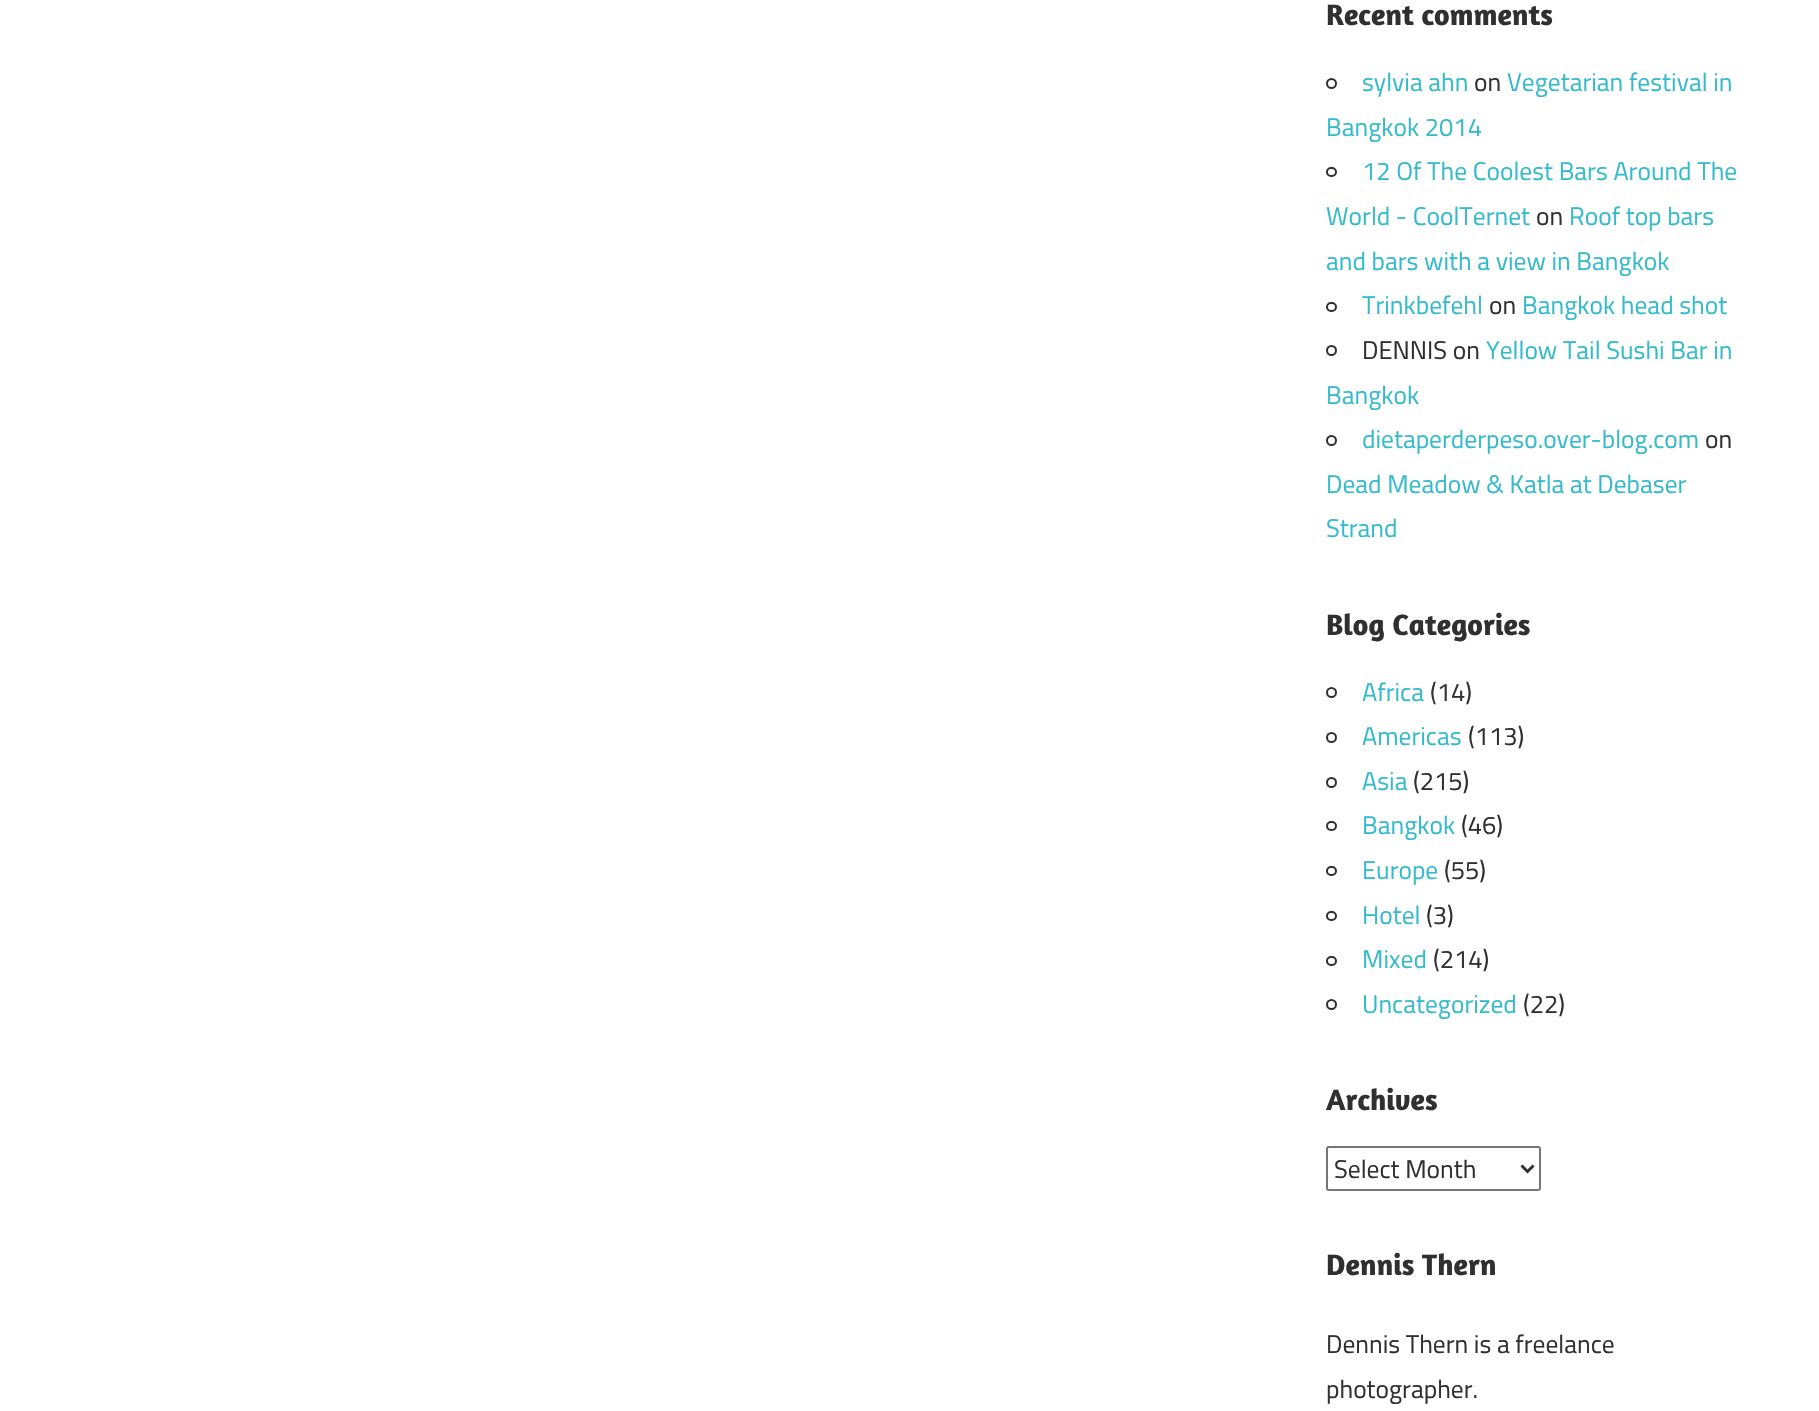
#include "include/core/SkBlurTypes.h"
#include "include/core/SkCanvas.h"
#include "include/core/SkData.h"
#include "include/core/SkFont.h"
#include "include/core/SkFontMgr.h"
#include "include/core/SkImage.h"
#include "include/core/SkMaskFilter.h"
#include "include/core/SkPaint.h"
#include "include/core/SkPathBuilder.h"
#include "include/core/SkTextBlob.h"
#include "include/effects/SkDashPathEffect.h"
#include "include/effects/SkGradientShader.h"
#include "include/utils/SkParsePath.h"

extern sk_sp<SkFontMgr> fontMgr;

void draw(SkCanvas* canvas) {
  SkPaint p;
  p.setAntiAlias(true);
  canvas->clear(SK_ColorWHITE);
  p.setStyle(SkPaint::kStroke_Style);
  p.setStrokeWidth(2);
  p.setColor(SkColorSetRGB(48, 48, 48));
  canvas->drawCircle(1331.5f, 83.5f, 4.5f, p);
  canvas->drawRoundRect(SkRect::MakeLTRB(1327, 168, 1336, 176), 4, 4, p);
  canvas->drawRoundRect(SkRect::MakeLTRB(1327, 303, 1336, 311), 4, 4, p);
  canvas->drawCircle(1331.5f, 350.5f, 4.5f, p);
  canvas->drawCircle(1331.5f, 440.5f, 4.5f, p);
  canvas->drawCircle(1331.5f, 692.5f, 4.5f, p);
  canvas->drawCircle(1331.5f, 737.5f, 4.5f, p);
  canvas->drawCircle(1331.5f, 782.5f, 4.5f, p);
  canvas->drawRoundRect(SkRect::MakeLTRB(1327, 822, 1336, 830), 4, 4, p);
  canvas->drawRoundRect(SkRect::MakeLTRB(1327, 867, 1336, 875), 4, 4, p);
  canvas->drawRoundRect(SkRect::MakeLTRB(1327, 912, 1336, 920), 4, 4, p);
  canvas->drawRoundRect(SkRect::MakeLTRB(1327, 957, 1336, 965), 4, 4, p);
  canvas->drawCircle(1331.5f, 1004.5f, 4.5f, p);
  p.setColor(SkColorSetRGB(118, 118, 118));
  canvas->drawRoundRect(SkRect::MakeLTRB(1327, 1147, 1540, 1190), 2, 2, p);
  p.setStrokeWidth(3);
  p.setColor(SkColorSetRGB(48, 48, 48));
  canvas->drawPath(SkPathBuilder().moveTo(1521.5f, 1165.5f).lineTo(1527.5f, 1171.5f).lineTo(1533.5f, 1165.5f).detach(), p);
  SkFont font1(fontMgr->matchFamilyStyle("Amaranth", SkFontStyle::Bold()), 30);
  font1.setSubpixel(true);
  p.setStyle(SkPaint::kFill_Style);
  canvas->drawString("Recent comments", 1326, 25, font1, p);
  SkFont font2(fontMgr->matchFamilyStyle("Titillium Web", SkFontStyle::Normal()), 25.5f);
  font2.setSubpixel(true);
  p.setColor(SkColorSetRGB(51, 187, 204));
  canvas->drawString("sylvia ahn", 1362, 91, font2, p);
  p.setColor(SkColorSetRGB(48, 48, 48));
  canvas->drawString("on", 1474, 91, font2, p);
  p.setColor(SkColorSetRGB(51, 187, 204));
  canvas->drawString("Vegetarian festival in", 1507, 91, font2, p);
  canvas->drawString("Bangkok 2014", 1326, 136, font2, p);
  canvas->drawString("12 Of The Coolest Bars Around The", 1362, 180, font2, p);
  canvas->drawString("World - CoolTernet", 1326, 225, font2, p);
  p.setColor(SkColorSetRGB(48, 48, 48));
  canvas->drawString("on", 1536, 225, font2, p);
  p.setColor(SkColorSetRGB(51, 187, 204));
  canvas->drawString("Roof top bars", 1569, 225, font2, p);
  canvas->drawString("and bars with a view in Bangkok", 1326, 270, font2, p);
  canvas->drawString("Trinkbefehl", 1362, 314, font2, p);
  p.setColor(SkColorSetRGB(48, 48, 48));
  canvas->drawString("on", 1489, 314, font2, p);
  p.setColor(SkColorSetRGB(51, 187, 204));
  canvas->drawString("Bangkok head shot", 1522, 314, font2, p);
  p.setColor(SkColorSetRGB(48, 48, 48));
  canvas->drawString("DENNIS on", 1362, 359, font2, p);
  p.setColor(SkColorSetRGB(51, 187, 204));
  canvas->drawString("Yellow Tail Sushi Bar in", 1486, 359, font2, p);
  canvas->drawString("Bangkok", 1326, 404, font2, p);
  canvas->drawString("dietaperderpeso.over-blog.com", 1362, 448, font2, p);
  p.setColor(SkColorSetRGB(48, 48, 48));
  canvas->drawString("on", 1705, 448, font2, p);
  p.setColor(SkColorSetRGB(51, 187, 204));
  canvas->drawString("Dead Meadow & Katla at Debaser", 1326, 493, font2, p);
  canvas->drawString("Strand", 1326, 537, font2, p);
  p.setColor(SkColorSetRGB(48, 48, 48));
  canvas->drawString("Blog Categories", 1326, 635, font1, p);
  p.setColor(SkColorSetRGB(51, 187, 204));
  canvas->drawString("Africa", 1362, 701, font2, p);
  p.setColor(SkColorSetRGB(48, 48, 48));
  canvas->drawString("(14)", 1430, 701, font2, p);
  p.setColor(SkColorSetRGB(51, 187, 204));
  canvas->drawString("Americas", 1362, 745, font2, p);
  p.setColor(SkColorSetRGB(48, 48, 48));
  canvas->drawString("(113)", 1468, 745, font2, p);
  p.setColor(SkColorSetRGB(51, 187, 204));
  canvas->drawString("Asia", 1362, 790, font2, p);
  p.setColor(SkColorSetRGB(48, 48, 48));
  canvas->drawString("(215)", 1413, 790, font2, p);
  p.setColor(SkColorSetRGB(51, 187, 204));
  canvas->drawString("Bangkok", 1362, 834, font2, p);
  p.setColor(SkColorSetRGB(48, 48, 48));
  canvas->drawString("(46)", 1461, 834, font2, p);
  p.setColor(SkColorSetRGB(51, 187, 204));
  canvas->drawString("Europe", 1362, 879, font2, p);
  p.setColor(SkColorSetRGB(48, 48, 48));
  canvas->drawString("(55)", 1444, 879, font2, p);
  p.setColor(SkColorSetRGB(51, 187, 204));
  canvas->drawString("Hotel", 1362, 924, font2, p);
  p.setColor(SkColorSetRGB(48, 48, 48));
  canvas->drawString("(3)", 1426, 924, font2, p);
  p.setColor(SkColorSetRGB(51, 187, 204));
  canvas->drawString("Mixed", 1362, 968, font2, p);
  p.setColor(SkColorSetRGB(48, 48, 48));
  canvas->drawString("(214)", 1433, 968, font2, p);
  p.setColor(SkColorSetRGB(51, 187, 204));
  canvas->drawString("Uncategorized", 1362, 1013, font2, p);
  p.setColor(SkColorSetRGB(48, 48, 48));
  canvas->drawString("(22)", 1523, 1013, font2, p);
  canvas->drawString("Archives", 1326, 1110, font1, p);
  canvas->drawString("Select Month", 1334, 1178, font2, p);
  canvas->drawString("Dennis Thern", 1326, 1275, font1, p);
  canvas->drawString("Dennis Thern is a freelance", 1326, 1353, font2, p);
  canvas->drawString("photographer.", 1326, 1398, font2, p);
}
